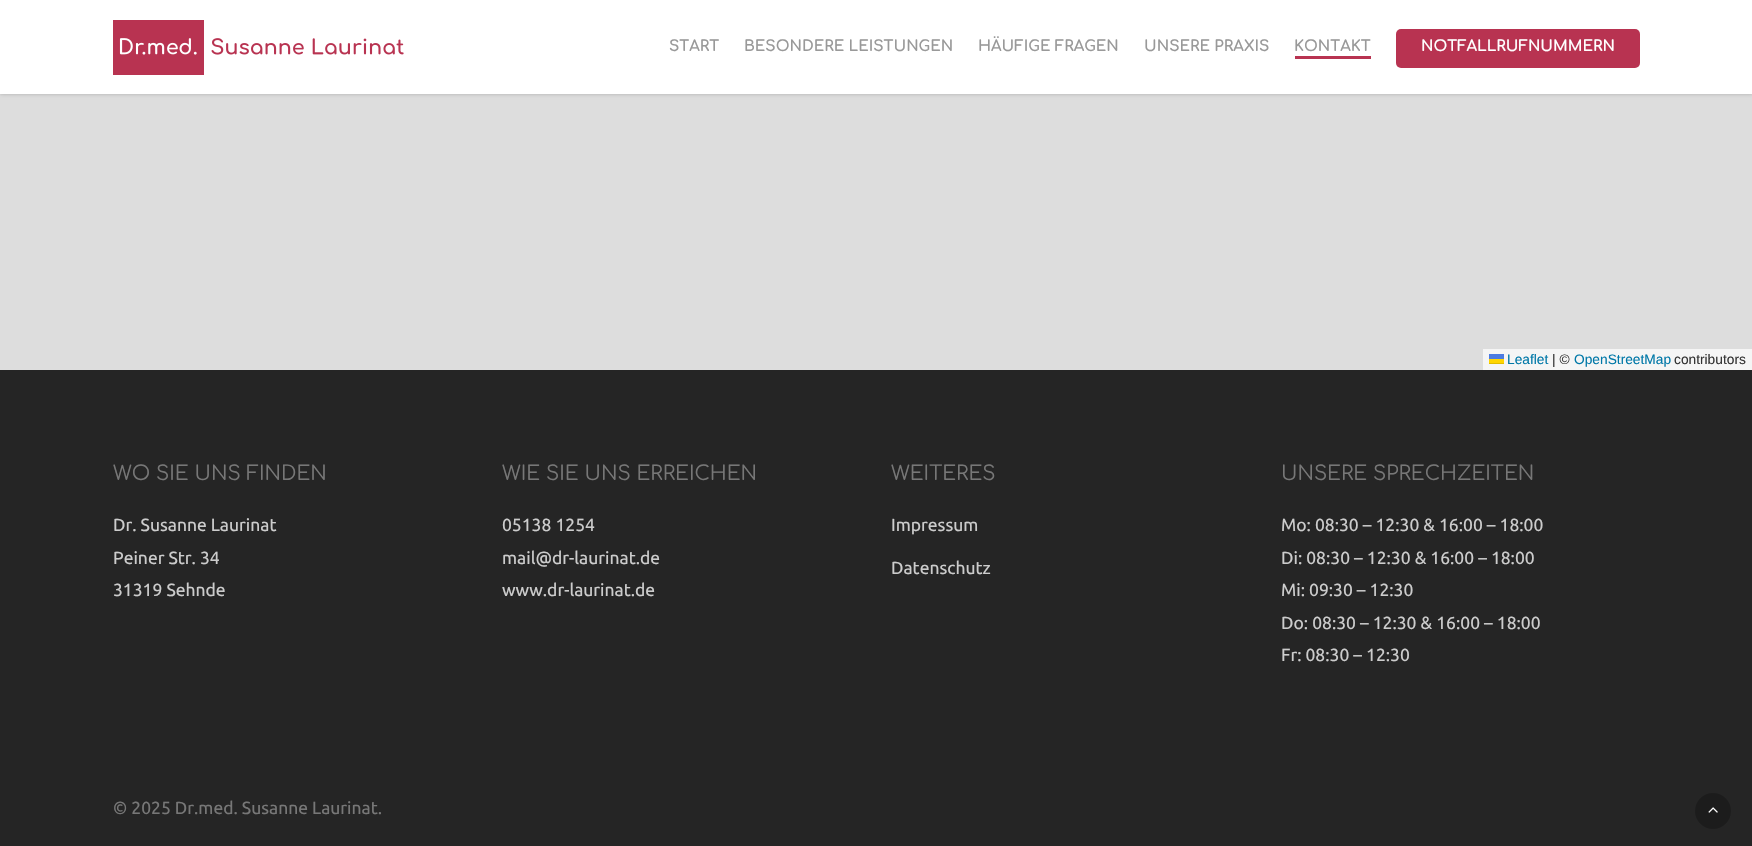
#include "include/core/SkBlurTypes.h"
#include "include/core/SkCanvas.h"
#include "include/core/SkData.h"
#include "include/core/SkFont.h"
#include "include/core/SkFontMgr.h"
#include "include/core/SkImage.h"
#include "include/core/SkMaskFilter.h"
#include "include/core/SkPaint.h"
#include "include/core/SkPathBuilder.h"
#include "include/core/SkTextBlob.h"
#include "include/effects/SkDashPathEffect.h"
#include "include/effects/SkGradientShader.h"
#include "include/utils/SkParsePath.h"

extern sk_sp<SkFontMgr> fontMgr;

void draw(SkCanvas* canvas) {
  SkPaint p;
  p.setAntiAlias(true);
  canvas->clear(SkColorSetRGB(221, 221, 221));
  p.setColor(SkColorSetARGB(56, 0, 0, 0));
  p.setMaskFilter(SkMaskFilter::MakeBlur(kNormal_SkBlurStyle, 2));
  canvas->drawRect(SkRect::MakeLTRB(0, 0, 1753, 94), p);
  p.setMaskFilter(nullptr);
  p.setColor(SK_ColorWHITE);
  canvas->drawRect(SkRect::MakeLTRB(0, 0, 1752, 94), p);
  canvas->drawImageRect(SkImages::DeferredFromEncodedData(SkData::MakeFromFileName("images/1.png")), SkRect::MakeLTRB(113, 20, 404, 75), SkSamplingOptions());
  p.setColor(SkColorSetRGB(184, 51, 81));
  canvas->drawRect(SkRect::MakeLTRB(1295, 56, 1371, 59), p);
  canvas->drawRoundRect(SkRect::MakeLTRB(1396, 29, 1640, 68), 5, 5, p);
  p.setColor(SkColorSetRGB(245, 245, 245));
  canvas->drawRect(SkRect::MakeLTRB(1483, 349, 1752, 370), p);
  p.setColor(SkColorSetRGB(76, 123, 225));
  canvas->drawRect(SkRect::MakeLTRB(1489, 354, 1504, 359), p);
  p.setColor(SkColorSetRGB(255, 213, 0));
  canvas->drawRect(SkRect::MakeLTRB(1489, 359, 1504, 363), p);
  p.setColor(SkColorSetRGB(224, 188, 0));
  canvas->drawRect(SkRect::MakeLTRB(1489, 363, 1504, 364), p);
  p.setColor(SkColorSetRGB(37, 37, 37));
  canvas->drawRect(SkRect::MakeLTRB(0, 370, 1752, 846), p);
  p.setColor(SkColorSetRGB(28, 28, 28));
  canvas->drawCircle(1713, 811, 18, p);
  canvas->drawImageRect(SkImages::DeferredFromEncodedData(SkData::MakeFromFileName("images/2.png")), SkRect::MakeLTRB(1708, 807, 1718, 813), SkSamplingOptions());
  SkFont font1(fontMgr->matchFamilyStyle("Comfortaa", SkFontStyle::Bold()), 15);
  font1.setSubpixel(true);
  p.setColor(SkColorSetRGB(153, 153, 153));
  canvas->drawString("START", 669, 51, font1, p);
  canvas->drawString("BESONDERE LEISTUNGEN", 744, 51, font1, p);
  canvas->drawString("HÄUFIGE FRAGEN", 978, 51, font1, p);
  canvas->drawString("UNSERE PRAXIS", 1144, 51, font1, p);
  canvas->drawString("KONTAKT", 1294, 51, font1, p);
  p.setColor(SK_ColorWHITE);
  canvas->drawString("NOTFALLRUFNUMMERN", 1421, 51, font1, p);
  SkFont font2(fontMgr->matchFamilyStyle("Liberation Sans", SkFontStyle::Normal()), 13.75f);
  font2.setSubpixel(true);
  p.setColor(SkColorSetRGB(0, 120, 168));
  canvas->drawString("Leaflet", 1507, 364, font2, p);
  p.setColor(SkColorSetRGB(51, 51, 51));
  canvas->drawString("| ©", 1552, 364, font2, p);
  p.setColor(SkColorSetRGB(0, 120, 168));
  canvas->drawString("OpenStreetMap", 1574, 364, font2, p);
  p.setColor(SkColorSetRGB(51, 51, 51));
  canvas->drawString("contributors", 1674, 364, font2, p);
  SkFont font3(fontMgr->matchFamilyStyle("Comfortaa", SkFontStyle::Normal()), 20);
  font3.setSubpixel(true);
  p.setColor(SkColorSetRGB(119, 119, 119));
  canvas->drawString("WO SIE UNS FINDEN", 113, 480, font3, p);
  SkFont font4(fontMgr->matchFamilyStyle("Ubuntu", SkFontStyle::Normal()), 17.5f);
  font4.setSubpixel(true);
  p.setColor(SkColorSetRGB(204, 204, 204));
  canvas->drawString("Dr. Susanne Laurinat", 113, 531, font4, p);
  canvas->drawString("Peiner Str. 34", 113, 564, font4, p);
  canvas->drawString("31319 Sehnde", 113, 596, font4, p);
  p.setColor(SkColorSetRGB(119, 119, 119));
  canvas->drawString("WIE SIE UNS ERREICHEN", 502, 480, font3, p);
  p.setColor(SkColorSetRGB(204, 204, 204));
  canvas->drawString("05138 1254", 502, 531, font4, p);
  canvas->drawString("mail@dr-laurinat.de", 502, 564, font4, p);
  canvas->drawString("www.dr-laurinat.de", 502, 596, font4, p);
  p.setColor(SkColorSetRGB(119, 119, 119));
  canvas->drawString("WEITERES", 891, 480, font3, p);
  p.setColor(SkColorSetRGB(204, 204, 204));
  canvas->drawString("Impressum", 891, 531, font4, p);
  canvas->drawString("Datenschutz", 891, 574, font4, p);
  p.setColor(SkColorSetRGB(119, 119, 119));
  canvas->drawString("UNSERE SPRECHZEITEN", 1281, 480, font3, p);
  p.setColor(SkColorSetRGB(204, 204, 204));
  canvas->drawString("Mo: 08:30 – 12:30 & 16:00 – 18:00", 1281, 531, font4, p);
  canvas->drawString("Di: 08:30 – 12:30 & 16:00 – 18:00", 1281, 564, font4, p);
  canvas->drawString("Mi: 09:30 – 12:30", 1281, 596, font4, p);
  canvas->drawString("Do: 08:30 – 12:30 & 16:00 – 18:00", 1281, 629, font4, p);
  canvas->drawString("Fr: 08:30 – 12:30", 1281, 661, font4, p);
  p.setColor(SkColorSetRGB(119, 119, 119));
  canvas->drawString("© 2025 Dr.med. Susanne Laurinat.", 113, 814, font4, p);
}
